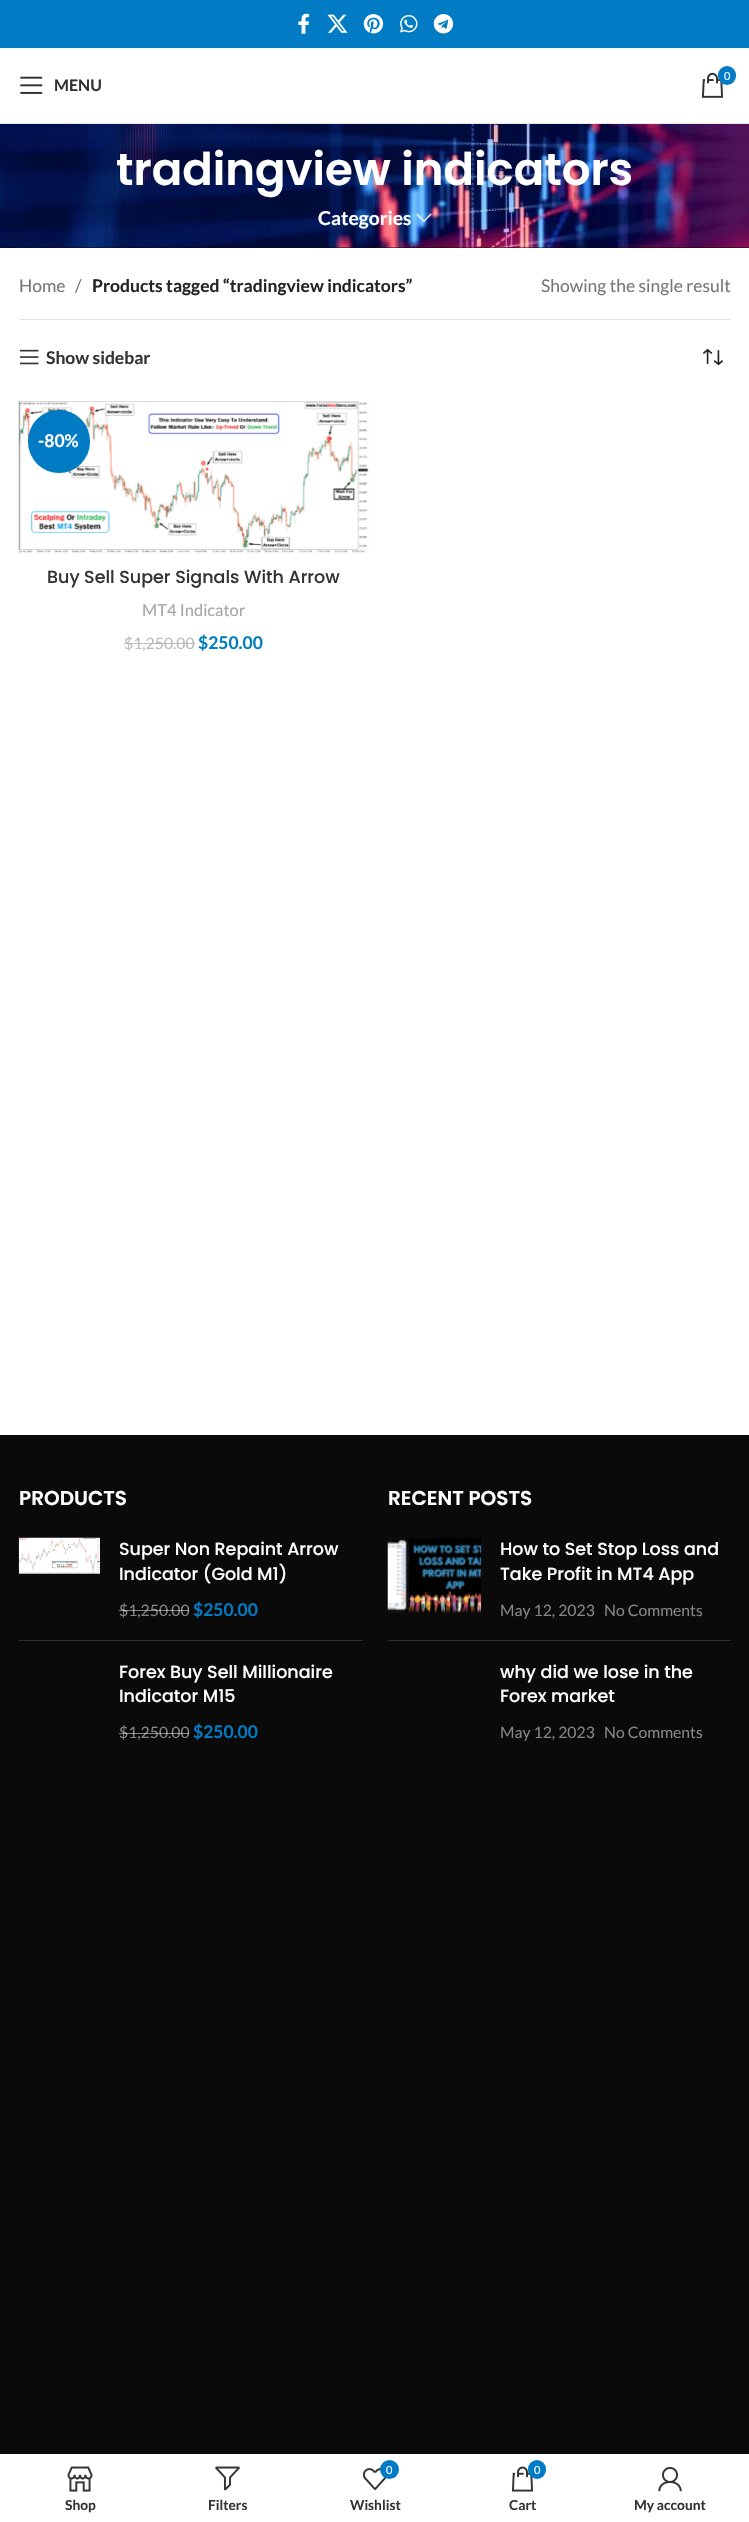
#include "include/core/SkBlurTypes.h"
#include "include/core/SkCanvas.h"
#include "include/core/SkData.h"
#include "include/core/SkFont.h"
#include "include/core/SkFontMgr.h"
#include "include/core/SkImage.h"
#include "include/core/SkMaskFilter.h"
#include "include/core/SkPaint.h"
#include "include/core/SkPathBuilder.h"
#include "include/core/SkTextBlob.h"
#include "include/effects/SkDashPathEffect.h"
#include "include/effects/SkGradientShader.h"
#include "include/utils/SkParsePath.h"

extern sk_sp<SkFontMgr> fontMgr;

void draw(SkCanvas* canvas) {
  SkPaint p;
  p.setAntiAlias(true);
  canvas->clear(SK_ColorWHITE);
  p.setColor(SkColorSetRGB(0, 123, 196));
  canvas->drawRect(SkRect::MakeLTRB(0, 0, 749, 48), p);
  canvas->drawImageRect(SkImages::DeferredFromEncodedData(SkData::MakeFromFileName("images/1.png")), SkRect::MakeLTRB(298, 13, 310, 34), SkSamplingOptions());
  canvas->drawImageRect(SkImages::DeferredFromEncodedData(SkData::MakeFromFileName("images/2.png")), SkRect::MakeLTRB(327, 14, 348, 33), SkSamplingOptions());
  canvas->drawImageRect(SkImages::DeferredFromEncodedData(SkData::MakeFromFileName("images/3.png")), SkRect::MakeLTRB(363, 14, 384, 34), SkSamplingOptions());
  canvas->drawImageRect(SkImages::DeferredFromEncodedData(SkData::MakeFromFileName("images/4.png")), SkRect::MakeLTRB(400, 15, 418, 33), SkSamplingOptions());
  canvas->drawImageRect(SkImages::DeferredFromEncodedData(SkData::MakeFromFileName("images/5.png")), SkRect::MakeLTRB(433, 14, 454, 34), SkSamplingOptions());
  p.setColor(SkColorSetRGB(232, 232, 232));
  canvas->drawRect(SkRect::MakeLTRB(0, 123, 749, 124), p);
  canvas->drawImageRect(SkImages::DeferredFromEncodedData(SkData::MakeFromFileName("images/6.png")), SkRect::MakeLTRB(701, 72, 724, 98), SkSamplingOptions());
  p.setColor(SkColorSetRGB(0, 123, 196));
  canvas->drawRoundRect(SkRect::MakeLTRB(718, 66, 736, 85), 9, 9, p);
  canvas->drawImageRect(SkImages::DeferredFromEncodedData(SkData::MakeFromFileName("images/7.png")), SkRect::MakeLTRB(20, 76, 43, 94), SkSamplingOptions());
  p.setColor(SkColorSetRGB(10, 10, 10));
  canvas->drawRect(SkRect::MakeLTRB(0, 247, 749, 248), p);
  canvas->drawImageRect(SkImages::DeferredFromEncodedData(SkData::MakeFromFileName("images/8.png")), SkRect::MakeLTRB(0, 124, 749, 248), SkSamplingOptions());
  canvas->drawImageRect(SkImages::DeferredFromEncodedData(SkData::MakeFromFileName("images/9.png")), SkRect::MakeLTRB(416, 213, 432, 222), SkSamplingOptions());
  p.setColor(SkColorSetRGB(228, 228, 228));
  canvas->drawRect(SkRect::MakeLTRB(19, 319, 731, 320), p);
  canvas->drawImageRect(SkImages::DeferredFromEncodedData(SkData::MakeFromFileName("images/10.png")), SkRect::MakeLTRB(20, 349, 39, 365), SkSamplingOptions());
  canvas->drawImageRect(SkImages::DeferredFromEncodedData(SkData::MakeFromFileName("images/11.png")), SkRect::MakeLTRB(702, 348, 724, 366), SkSamplingOptions());
  canvas->drawImageRect(SkImages::DeferredFromEncodedData(SkData::MakeFromFileName("images/12.png")), SkRect::MakeLTRB(18, 401, 369, 554), SkSamplingOptions());
  p.setColor(SkColorSetRGB(0, 123, 196));
  canvas->drawRoundRect(SkRect::MakeLTRB(28, 410, 90, 473), 31, 31, p);
  p.setColor(SkColorSetRGB(187, 187, 187));
  canvas->drawRect(SkRect::MakeLTRB(124, 643, 195, 644), p);
  p.setColor(SkColorSetRGB(10, 10, 10));
  canvas->drawRect(SkRect::MakeLTRB(0, 1435, 749, 2454), p);
  p.setColor(SkColorSetRGB(47, 47, 47));
  canvas->drawRect(SkRect::MakeLTRB(19, 1640, 363, 1641), p);
  canvas->drawImageRect(SkImages::DeferredFromEncodedData(SkData::MakeFromFileName("images/13.png")), SkRect::MakeLTRB(18, 1537, 100, 1574), SkSamplingOptions());
  canvas->drawRect(SkRect::MakeLTRB(388, 1640, 731, 1641), p);
  canvas->drawImageRect(SkImages::DeferredFromEncodedData(SkData::MakeFromFileName("images/14.png")), SkRect::MakeLTRB(387, 1538, 482, 1613), SkSamplingOptions());
  canvas->drawImageRect(SkImages::DeferredFromEncodedData(SkData::MakeFromFileName("images/15.png")), SkRect::MakeLTRB(67, 2466, 93, 2492), SkSamplingOptions());
  canvas->drawImageRect(SkImages::DeferredFromEncodedData(SkData::MakeFromFileName("images/16.png")), SkRect::MakeLTRB(215, 2466, 240, 2491), SkSamplingOptions());
  canvas->drawImageRect(SkImages::DeferredFromEncodedData(SkData::MakeFromFileName("images/17.png")), SkRect::MakeLTRB(362, 2468, 387, 2490), SkSamplingOptions());
  p.setColor(SkColorSetRGB(0, 123, 196));
  canvas->drawCircle(389.5f, 2469.5f, 9.5f, p);
  canvas->drawImageRect(SkImages::DeferredFromEncodedData(SkData::MakeFromFileName("images/18.png")), SkRect::MakeLTRB(511, 2466, 534, 2492), SkSamplingOptions());
  canvas->drawRoundRect(SkRect::MakeLTRB(528, 2460, 546, 2479), 9, 9, p);
  canvas->drawImageRect(SkImages::DeferredFromEncodedData(SkData::MakeFromFileName("images/19.png")), SkRect::MakeLTRB(658, 2467, 682, 2492), SkSamplingOptions());
  SkFont font1(fontMgr->matchFamilyStyle("Lato", SkFontStyle::Normal()), 11);
  font1.setSubpixel(true);
  p.setColor(SK_ColorWHITE);
  canvas->drawString("0", 724, 80, font1, p);
  SkFont font2(fontMgr->matchFamilyStyle("Lato", SkFontStyle::Bold()), 16);
  font2.setSubpixel(true);
  p.setColor(SkColorSetRGB(51, 51, 51));
  canvas->drawString("MENU", 54, 91, font2, p);
  SkFont font3(fontMgr->matchFamilyStyle("Poppins", SkFontStyle(600, SkFontStyle::kNormal_Width, SkFontStyle::kUpright_Slant)), 45);
  font3.setSubpixel(true);
  p.setColor(SK_ColorWHITE);
  canvas->drawString("tradingview indicators", 116, 185, font3, p);
  SkFont font4(fontMgr->matchFamilyStyle("Lato", SkFontStyle::Bold()), 19.25f);
  font4.setSubpixel(true);
  canvas->drawString("Categories", 318, 225, font4, p);
  SkFont font5(fontMgr->matchFamilyStyle("Lato", SkFontStyle::Normal()), 17.5f);
  font5.setSubpixel(true);
  p.setColor(SkColorSetRGB(118, 118, 118));
  canvas->drawString("Home", 19, 292, font5, p);
  canvas->drawString("/", 75, 292, font5, p);
  SkFont font6(fontMgr->matchFamilyStyle("Lato", SkFontStyle::Bold()), 17.5f);
  font6.setSubpixel(true);
  p.setColor(SkColorSetRGB(36, 36, 36));
  canvas->drawString("Products tagged “tradingview indicators”", 92, 292, font6, p);
  p.setColor(SkColorSetRGB(118, 118, 118));
  canvas->drawString("Showing the single result", 541, 292, font5, p);
  p.setColor(SkColorSetRGB(51, 51, 51));
  canvas->drawString("Show sidebar", 46, 364, font6, p);
  p.setColor(SK_ColorWHITE);
  canvas->drawString("-80%", 38, 447, font6, p);
  SkFont font7(fontMgr->matchFamilyStyle("Poppins", SkFontStyle(500, SkFontStyle::kNormal_Width, SkFontStyle::kUpright_Slant)), 17.5f);
  font7.setSubpixel(true);
  p.setColor(SkColorSetRGB(51, 51, 51));
  canvas->drawString("Buy Sell Super Signals With Arrow", 47, 583, font7, p);
  SkFont font8(fontMgr->matchFamilyStyle("Lato", SkFontStyle::Normal()), 16.5f);
  font8.setSubpixel(true);
  p.setColor(SkColorSetRGB(165, 165, 165));
  canvas->drawString("MT4 Indicator", 142, 616, font8, p);
  SkFont font9(fontMgr->matchFamilyStyle("Lato", SkFontStyle::Normal()), 15.75f);
  font9.setSubpixel(true);
  p.setColor(SkColorSetRGB(187, 187, 187));
  canvas->drawString("$1,250.00", 124, 649, font9, p);
  p.setColor(SkColorSetRGB(0, 123, 196));
  canvas->drawString("$250.00", 198, 649, font6, p);
  SkFont font10(fontMgr->matchFamilyStyle("Poppins", SkFontStyle(600, SkFontStyle::kNormal_Width, SkFontStyle::kUpright_Slant)), 20);
  font10.setSubpixel(true);
  p.setColor(SK_ColorWHITE);
  canvas->drawString("PRODUCTS", 19, 1505, font10, p);
  canvas->drawString("Super Non Repaint Arrow", 119, 1555, font7, p);
  canvas->drawString("Indicator (Gold M1)", 119, 1580, font7, p);
  p.setColor(SkColorSetRGB(133, 133, 133));
  canvas->drawString("$1,250.00", 119, 1616, font9, p);
  p.setColor(SkColorSetARGB(128, 255, 255, 255));
  canvas->drawRect(SkRect::MakeLTRB(119, 1610, 128, 1611), p);
  canvas->drawRect(SkRect::MakeLTRB(128, 1610, 189, 1611), p);
  p.setColor(SkColorSetRGB(0, 123, 196));
  canvas->drawString("$250.00", 193, 1616, font6, p);
  p.setColor(SK_ColorWHITE);
  canvas->drawString("Forex Buy Sell Millionaire", 119, 1678, font7, p);
  canvas->drawString("Indicator M15", 119, 1702, font7, p);
  p.setColor(SkColorSetRGB(133, 133, 133));
  canvas->drawString("$1,250.00", 119, 1738, font9, p);
  p.setColor(SkColorSetARGB(128, 255, 255, 255));
  canvas->drawRect(SkRect::MakeLTRB(119, 1733, 128, 1734), p);
  canvas->drawRect(SkRect::MakeLTRB(128, 1733, 189, 1734), p);
  p.setColor(SkColorSetRGB(0, 123, 196));
  canvas->drawString("$250.00", 193, 1738, font6, p);
  p.setColor(SK_ColorWHITE);
  canvas->drawString("RECENT POSTS", 388, 1505, font10, p);
  canvas->drawString("How to Set Stop Loss and", 500, 1555, font7, p);
  canvas->drawString("Take Profit in MT4 App", 500, 1580, font7, p);
  p.setColor(SkColorSetRGB(133, 133, 133));
  canvas->drawString("May 12, 2023", 500, 1616, font9, p);
  canvas->drawString("No Comments", 604, 1616, font9, p);
  p.setColor(SK_ColorWHITE);
  canvas->drawString("why did we lose in the", 500, 1678, font7, p);
  canvas->drawString("Forex market", 500, 1702, font7, p);
  p.setColor(SkColorSetRGB(133, 133, 133));
  canvas->drawString("May 12, 2023", 500, 1738, font9, p);
  canvas->drawString("No Comments", 604, 1738, font9, p);
  SkFont font11(fontMgr->matchFamilyStyle("Lato", SkFontStyle::Bold()), 13.75f);
  font11.setSubpixel(true);
  p.setColor(SkColorSetRGB(51, 51, 51));
  canvas->drawString("Shop", 65, 2510, font11, p);
  canvas->drawString("Filters", 208, 2510, font11, p);
  p.setColor(SK_ColorWHITE);
  canvas->drawString("0", 386, 2474, font1, p);
  p.setColor(SkColorSetRGB(51, 51, 51));
  canvas->drawString("Wishlist", 350, 2510, font11, p);
  p.setColor(SK_ColorWHITE);
  canvas->drawString("0", 534, 2474, font1, p);
  p.setColor(SkColorSetRGB(51, 51, 51));
  canvas->drawString("Cart", 509, 2510, font11, p);
  canvas->drawString("My account", 634, 2510, font11, p);
}
